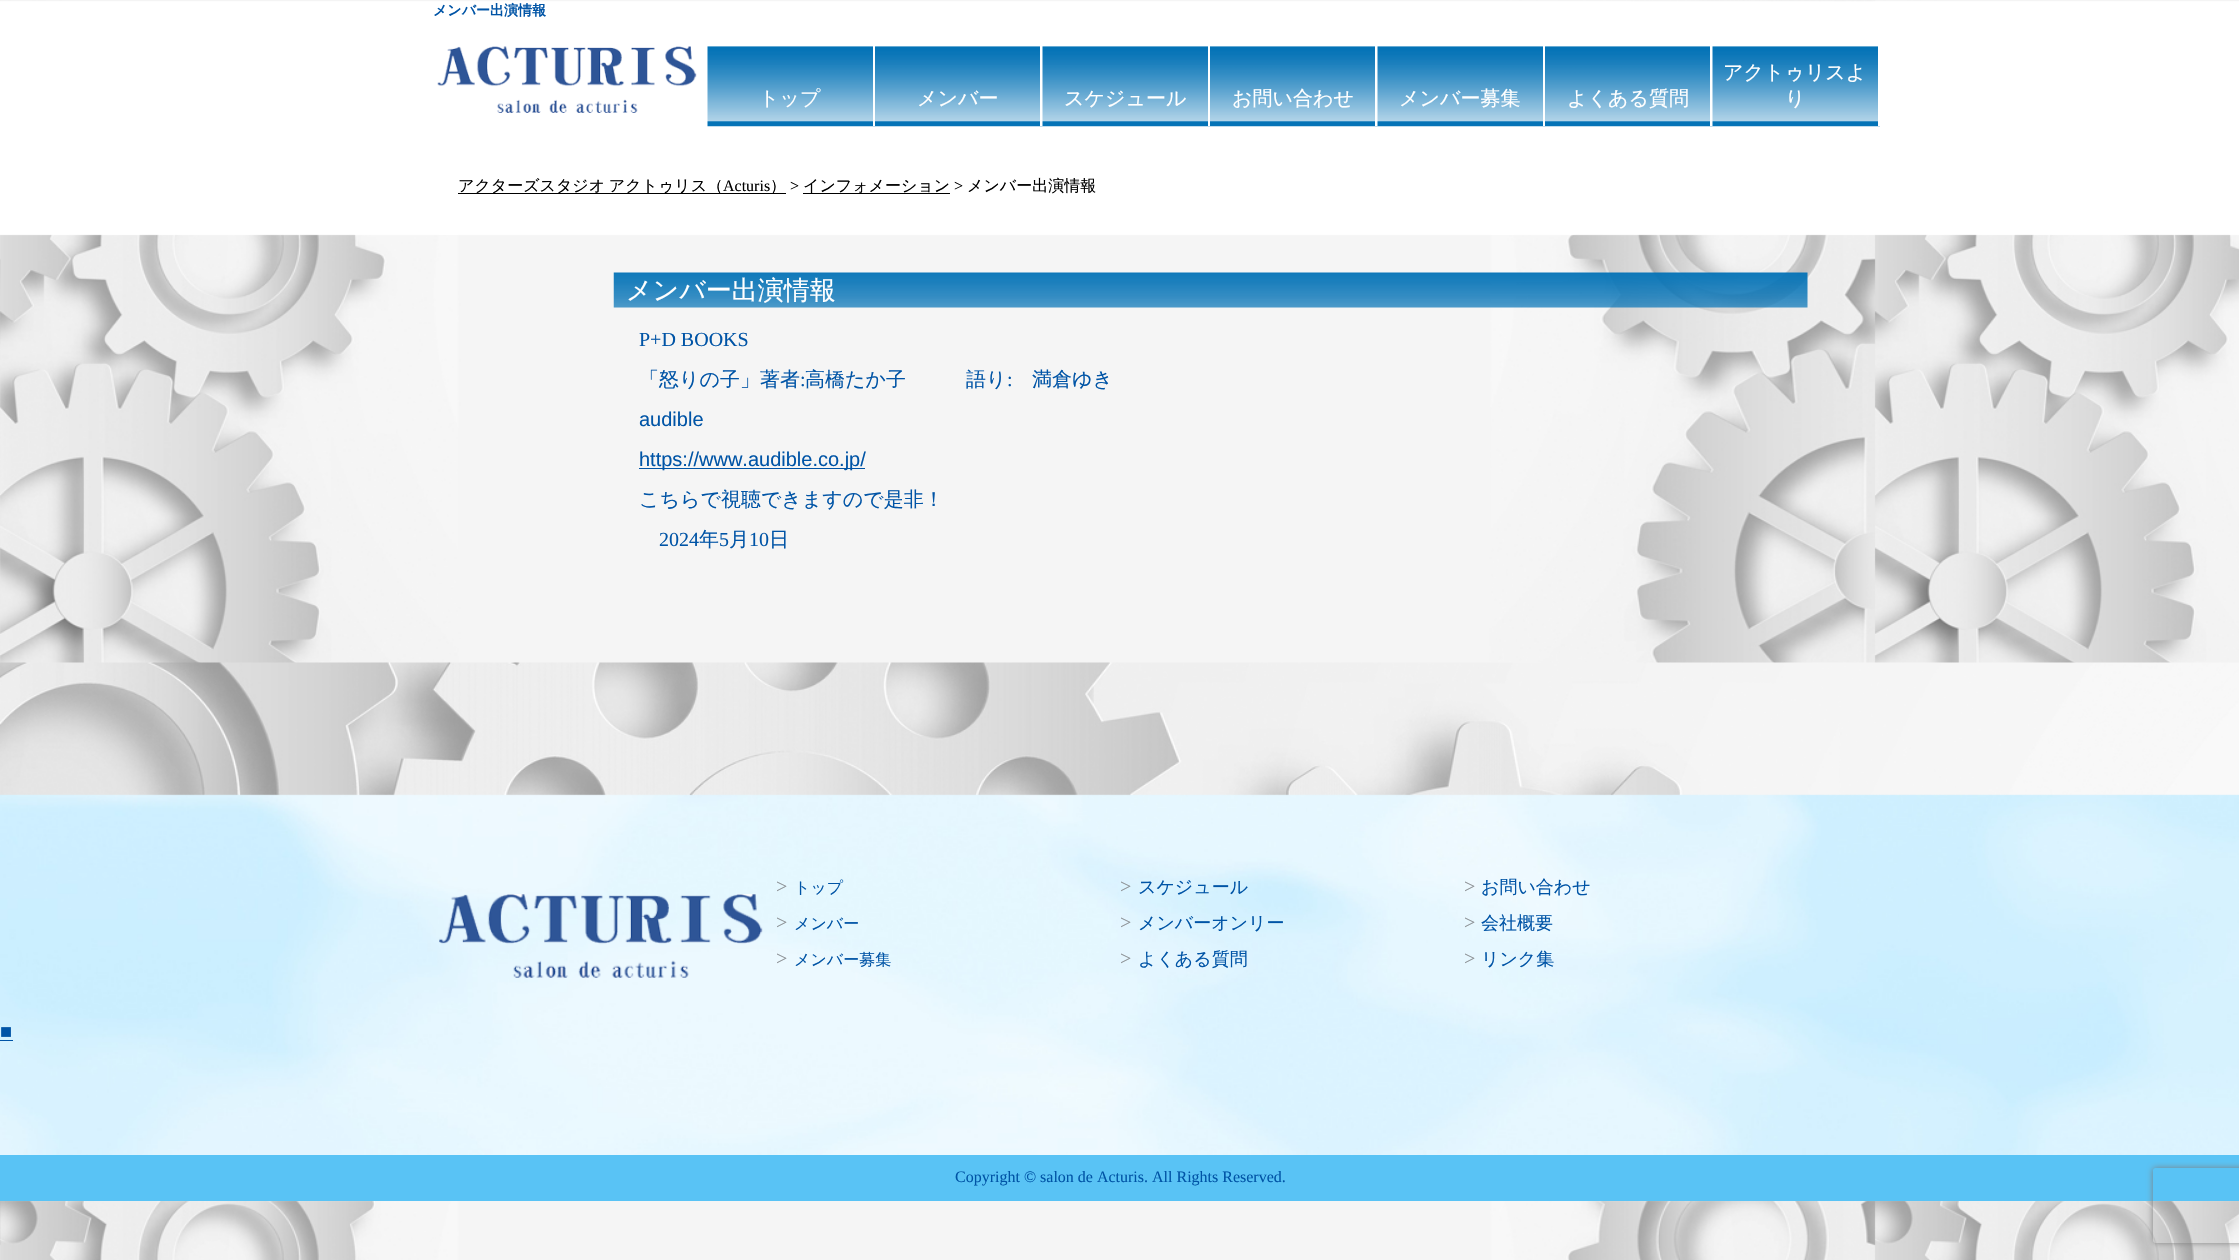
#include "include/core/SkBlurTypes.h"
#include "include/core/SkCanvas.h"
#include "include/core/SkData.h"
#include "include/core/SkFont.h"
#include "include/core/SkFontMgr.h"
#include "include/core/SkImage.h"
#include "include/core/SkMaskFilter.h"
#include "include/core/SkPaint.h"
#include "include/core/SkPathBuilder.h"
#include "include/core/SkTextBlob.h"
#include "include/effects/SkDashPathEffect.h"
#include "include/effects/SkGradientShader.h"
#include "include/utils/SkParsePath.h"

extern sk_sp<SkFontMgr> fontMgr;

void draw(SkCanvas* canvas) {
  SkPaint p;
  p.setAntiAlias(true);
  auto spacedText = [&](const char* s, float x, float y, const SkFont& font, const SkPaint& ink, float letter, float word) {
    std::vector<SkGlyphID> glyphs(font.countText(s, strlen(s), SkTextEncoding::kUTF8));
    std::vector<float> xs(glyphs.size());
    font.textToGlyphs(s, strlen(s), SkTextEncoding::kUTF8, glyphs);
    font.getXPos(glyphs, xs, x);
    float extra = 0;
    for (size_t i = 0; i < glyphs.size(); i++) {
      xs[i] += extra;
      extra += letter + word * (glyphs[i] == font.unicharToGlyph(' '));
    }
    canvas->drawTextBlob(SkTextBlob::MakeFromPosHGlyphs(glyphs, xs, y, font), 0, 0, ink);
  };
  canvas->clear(SK_ColorWHITE);
  canvas->drawImageRect(SkImages::DeferredFromEncodedData(SkData::MakeFromFileName("images/1.png")), SkRect::MakeLTRB(0, 0, 2239, 1260), SkSamplingOptions());
  canvas->drawImageRect(SkImages::DeferredFromEncodedData(SkData::MakeFromFileName("images/2.png")), SkRect::MakeLTRB(0, 1, 2239, 236), SkSamplingOptions());
  canvas->drawImageRect(SkImages::DeferredFromEncodedData(SkData::MakeFromFileName("images/3.png")), SkRect::MakeLTRB(437, 46, 697, 113), SkSamplingOptions());
  canvas->drawImageRect(SkImages::DeferredFromEncodedData(SkData::MakeFromFileName("images/4.png")), SkRect::MakeLTRB(707, 46, 875, 127), SkSamplingOptions());
  p.setColor(SK_ColorWHITE);
  canvas->drawRect(SkRect::MakeLTRB(873, 46, 875, 126), p);
  canvas->drawImageRect(SkImages::DeferredFromEncodedData(SkData::MakeFromFileName("images/5.png")), SkRect::MakeLTRB(875, 46, 1043, 127), SkSamplingOptions());
  canvas->drawRect(SkRect::MakeLTRB(1040, 46, 1043, 126), p);
  canvas->drawImageRect(SkImages::DeferredFromEncodedData(SkData::MakeFromFileName("images/6.png")), SkRect::MakeLTRB(1042, 46, 1210, 127), SkSamplingOptions());
  canvas->drawRect(SkRect::MakeLTRB(1208, 46, 1210, 126), p);
  canvas->drawImageRect(SkImages::DeferredFromEncodedData(SkData::MakeFromFileName("images/7.png")), SkRect::MakeLTRB(1210, 46, 1378, 127), SkSamplingOptions());
  canvas->drawRect(SkRect::MakeLTRB(1375, 46, 1378, 126), p);
  canvas->drawImageRect(SkImages::DeferredFromEncodedData(SkData::MakeFromFileName("images/8.png")), SkRect::MakeLTRB(1377, 46, 1545, 127), SkSamplingOptions());
  canvas->drawRect(SkRect::MakeLTRB(1543, 46, 1545, 126), p);
  canvas->drawImageRect(SkImages::DeferredFromEncodedData(SkData::MakeFromFileName("images/9.png")), SkRect::MakeLTRB(1545, 46, 1713, 127), SkSamplingOptions());
  canvas->drawRect(SkRect::MakeLTRB(1710, 46, 1713, 126), p);
  canvas->drawImageRect(SkImages::DeferredFromEncodedData(SkData::MakeFromFileName("images/10.png")), SkRect::MakeLTRB(1712, 46, 1880, 127), SkSamplingOptions());
  canvas->drawRect(SkRect::MakeLTRB(1878, 46, 1880, 126), p);
  p.setColor(SK_ColorBLACK);
  canvas->drawRect(SkRect::MakeLTRB(458, 193, 786, 194), p);
  canvas->drawRect(SkRect::MakeLTRB(803, 193, 950, 194), p);
  canvas->drawImageRect(SkImages::DeferredFromEncodedData(SkData::MakeFromFileName("images/11.png")), SkRect::MakeLTRB(613, 272, 1808, 308), SkSamplingOptions());
  p.setColor(SkColorSetRGB(0, 84, 166));
  canvas->drawRect(SkRect::MakeLTRB(639, 468, 865, 469), p);
  canvas->drawImageRect(SkImages::DeferredFromEncodedData(SkData::MakeFromFileName("images/12.png")), SkRect::MakeLTRB(0, 662, 2239, 1202), SkSamplingOptions());
  canvas->drawImageRect(SkImages::DeferredFromEncodedData(SkData::MakeFromFileName("images/13.png")), SkRect::MakeLTRB(439, 894, 763, 978), SkSamplingOptions());
  canvas->drawRect(SkRect::MakeLTRB(0, 1040, 13, 1041), p);
  p.setColor(SkColorSetRGB(89, 195, 245));
  canvas->drawRect(SkRect::MakeLTRB(0, 1155, 2239, 1201), p);
  canvas->save();
  canvas->clipPath(SkPathBuilder(SkPathFillType::kEvenOdd).moveTo(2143, 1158).lineTo(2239, 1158).lineTo(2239, 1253).lineTo(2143, 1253).close().moveTo(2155.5f, 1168).lineTo(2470.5f, 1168).cubicTo(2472, 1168, 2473, 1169, 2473, 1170.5f).lineTo(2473, 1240.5f).cubicTo(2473, 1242, 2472, 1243, 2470.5f, 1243).lineTo(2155.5f, 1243).cubicTo(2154, 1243, 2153, 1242, 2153, 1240.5f).lineTo(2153, 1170.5f).cubicTo(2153, 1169, 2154, 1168, 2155.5f, 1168).close().detach(), true);
  p.setColor(SkColorSetRGB(128, 128, 128));
  p.setMaskFilter(SkMaskFilter::MakeBlur(kNormal_SkBlurStyle, 3));
  canvas->drawRoundRect(SkRect::MakeLTRB(2153, 1168, 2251, 1243), 2.5f, 2.5f, p);
  p.setMaskFilter(nullptr);
  canvas->restore();
  SkFont font1(fontMgr->matchFamilyStyle("WenQuanYi Zen Hei", SkFontStyle::Bold()), 14);
  font1.setSubpixel(true);
  p.setColor(SkColorSetRGB(0, 84, 166));
  canvas->drawString("メンバー出演情報", 433, 15, font1, p);
  SkFont font2(fontMgr->matchFamilyStyle("WenQuanYi Zen Hei", SkFontStyle(500, SkFontStyle::kNormal_Width, SkFontStyle::kUpright_Slant)), 20);
  font2.setSubpixel(true);
  p.setColor(SK_ColorWHITE);
  canvas->drawString("トップ", 759, 105, font2, p);
  canvas->drawString("メンバー", 917, 105, font2, p);
  canvas->drawString("スケジュール", 1064, 105, font2, p);
  canvas->drawString("お問い合わせ", 1232, 105, font2, p);
  canvas->drawString("メンバー募集", 1399, 105, font2, p);
  canvas->drawString("よくある質問", 1567, 105, font2, p);
  canvas->drawString("アクトゥリスよ", 1723, 79, font2, p);
  canvas->drawString("り", 1785, 105, font2, p);
  SkFont font3(fontMgr->matchFamilyStyle("WenQuanYi Zen Hei", SkFontStyle(500, SkFontStyle::kNormal_Width, SkFontStyle::kUpright_Slant)), 16);
  font3.setSubpixel(true);
  p.setColor(SK_ColorBLACK);
  spacedText("アクターズスタジオ アクトゥリス（", 458, 191, font3, p, 0, -1);
  SkFont font4(fontMgr->matchFamilyStyle("Liberation Serif", SkFontStyle::Normal()), 16);
  font4.setSubpixel(true);
  canvas->drawString("Acturis", 723, 191, font4, p);
  canvas->drawString("）", 770, 191, font3, p);
  canvas->drawString(">", 790, 191, font4, p);
  canvas->drawString("インフォメーション", 803, 191, font3, p);
  canvas->drawString(">", 954, 191, font4, p);
  canvas->drawString("メンバー出演情報", 967, 191, font3, p);
  SkFont font5(fontMgr->matchFamilyStyle("WenQuanYi Zen Hei", SkFontStyle(500, SkFontStyle::kNormal_Width, SkFontStyle::kUpright_Slant)), 26);
  font5.setSubpixel(true);
  p.setColor(SK_ColorWHITE);
  canvas->drawString("メンバー出演情報", 626, 299, font5, p);
  SkFont font6(fontMgr->matchFamilyStyle("Liberation Serif", SkFontStyle::Normal()), 20);
  font6.setSubpixel(true);
  p.setColor(SkColorSetRGB(0, 84, 166));
  canvas->drawString("P+D BOOKS", 639, 346, font6, p);
  canvas->drawString("「怒りの子」著者", 639, 386, font2, p);
  canvas->drawString(":", 800, 386, font6, p);
  canvas->drawString("高橋たか子　　　語り", 805, 386, font2, p);
  canvas->drawString(":", 1007, 386, font6, p);
  canvas->drawString("満倉ゆき", 1032, 386, font2, p);
  SkFont font7(fontMgr->matchFamilyStyle("Liberation Sans", SkFontStyle::Normal()), 20);
  font7.setSubpixel(true);
  canvas->drawString("audible", 639, 426, font7, p);
  canvas->drawString("https://www.audible.co.jp/", 639, 466, font7, p);
  canvas->drawString("こちらで視聴できますので是非！", 639, 506, font2, p);
  canvas->drawString("2024", 659, 546, font6, p);
  canvas->drawString("年", 699, 546, font2, p);
  canvas->drawString("5", 719, 546, font6, p);
  canvas->drawString("月", 729, 546, font2, p);
  canvas->drawString("10", 749, 546, font6, p);
  canvas->drawString("日", 769, 546, font2, p);
  p.setColor(SkColorSetRGB(141, 146, 150));
  canvas->drawString(">", 776, 893, font6, p);
  p.setColor(SkColorSetRGB(0, 84, 166));
  canvas->drawString("トップ", 794, 893, font3, p);
  p.setColor(SkColorSetRGB(141, 146, 150));
  canvas->drawString(">", 776, 929, font6, p);
  p.setColor(SkColorSetRGB(0, 84, 166));
  canvas->drawString("メンバー", 794, 929, font3, p);
  p.setColor(SkColorSetRGB(141, 146, 150));
  canvas->drawString(">", 776, 965, font6, p);
  p.setColor(SkColorSetRGB(0, 84, 166));
  canvas->drawString("メンバー募集", 794, 965, font3, p);
  p.setColor(SkColorSetRGB(141, 146, 150));
  canvas->drawString(">", 1120, 893, font6, p);
  SkFont font8(fontMgr->matchFamilyStyle("WenQuanYi Zen Hei", SkFontStyle(500, SkFontStyle::kNormal_Width, SkFontStyle::kUpright_Slant)), 18);
  font8.setSubpixel(true);
  p.setColor(SkColorSetRGB(0, 84, 166));
  canvas->drawString("スケジュール", 1138, 893, font8, p);
  p.setColor(SkColorSetRGB(141, 146, 150));
  canvas->drawString(">", 1120, 929, font6, p);
  p.setColor(SkColorSetRGB(0, 84, 166));
  canvas->drawString("メンバーオンリー", 1138, 929, font8, p);
  p.setColor(SkColorSetRGB(141, 146, 150));
  canvas->drawString(">", 1120, 965, font6, p);
  p.setColor(SkColorSetRGB(0, 84, 166));
  canvas->drawString("よくある質問", 1138, 965, font8, p);
  p.setColor(SkColorSetRGB(141, 146, 150));
  canvas->drawString(">", 1464, 893, font6, p);
  p.setColor(SkColorSetRGB(0, 84, 166));
  canvas->drawString("お問い合わせ", 1481, 893, font8, p);
  p.setColor(SkColorSetRGB(141, 146, 150));
  canvas->drawString(">", 1464, 929, font6, p);
  p.setColor(SkColorSetRGB(0, 84, 166));
  canvas->drawString("会社概要", 1481, 929, font8, p);
  p.setColor(SkColorSetRGB(141, 146, 150));
  canvas->drawString(">", 1464, 965, font6, p);
  p.setColor(SkColorSetRGB(0, 84, 166));
  canvas->drawString("リンク集", 1481, 965, font8, p);
  canvas->drawString("■", 0, 1038, font6, p);
  canvas->drawString("Copyright © salon de Acturis. All Rights Reserved.", 955, 1182, font4, p);
}
